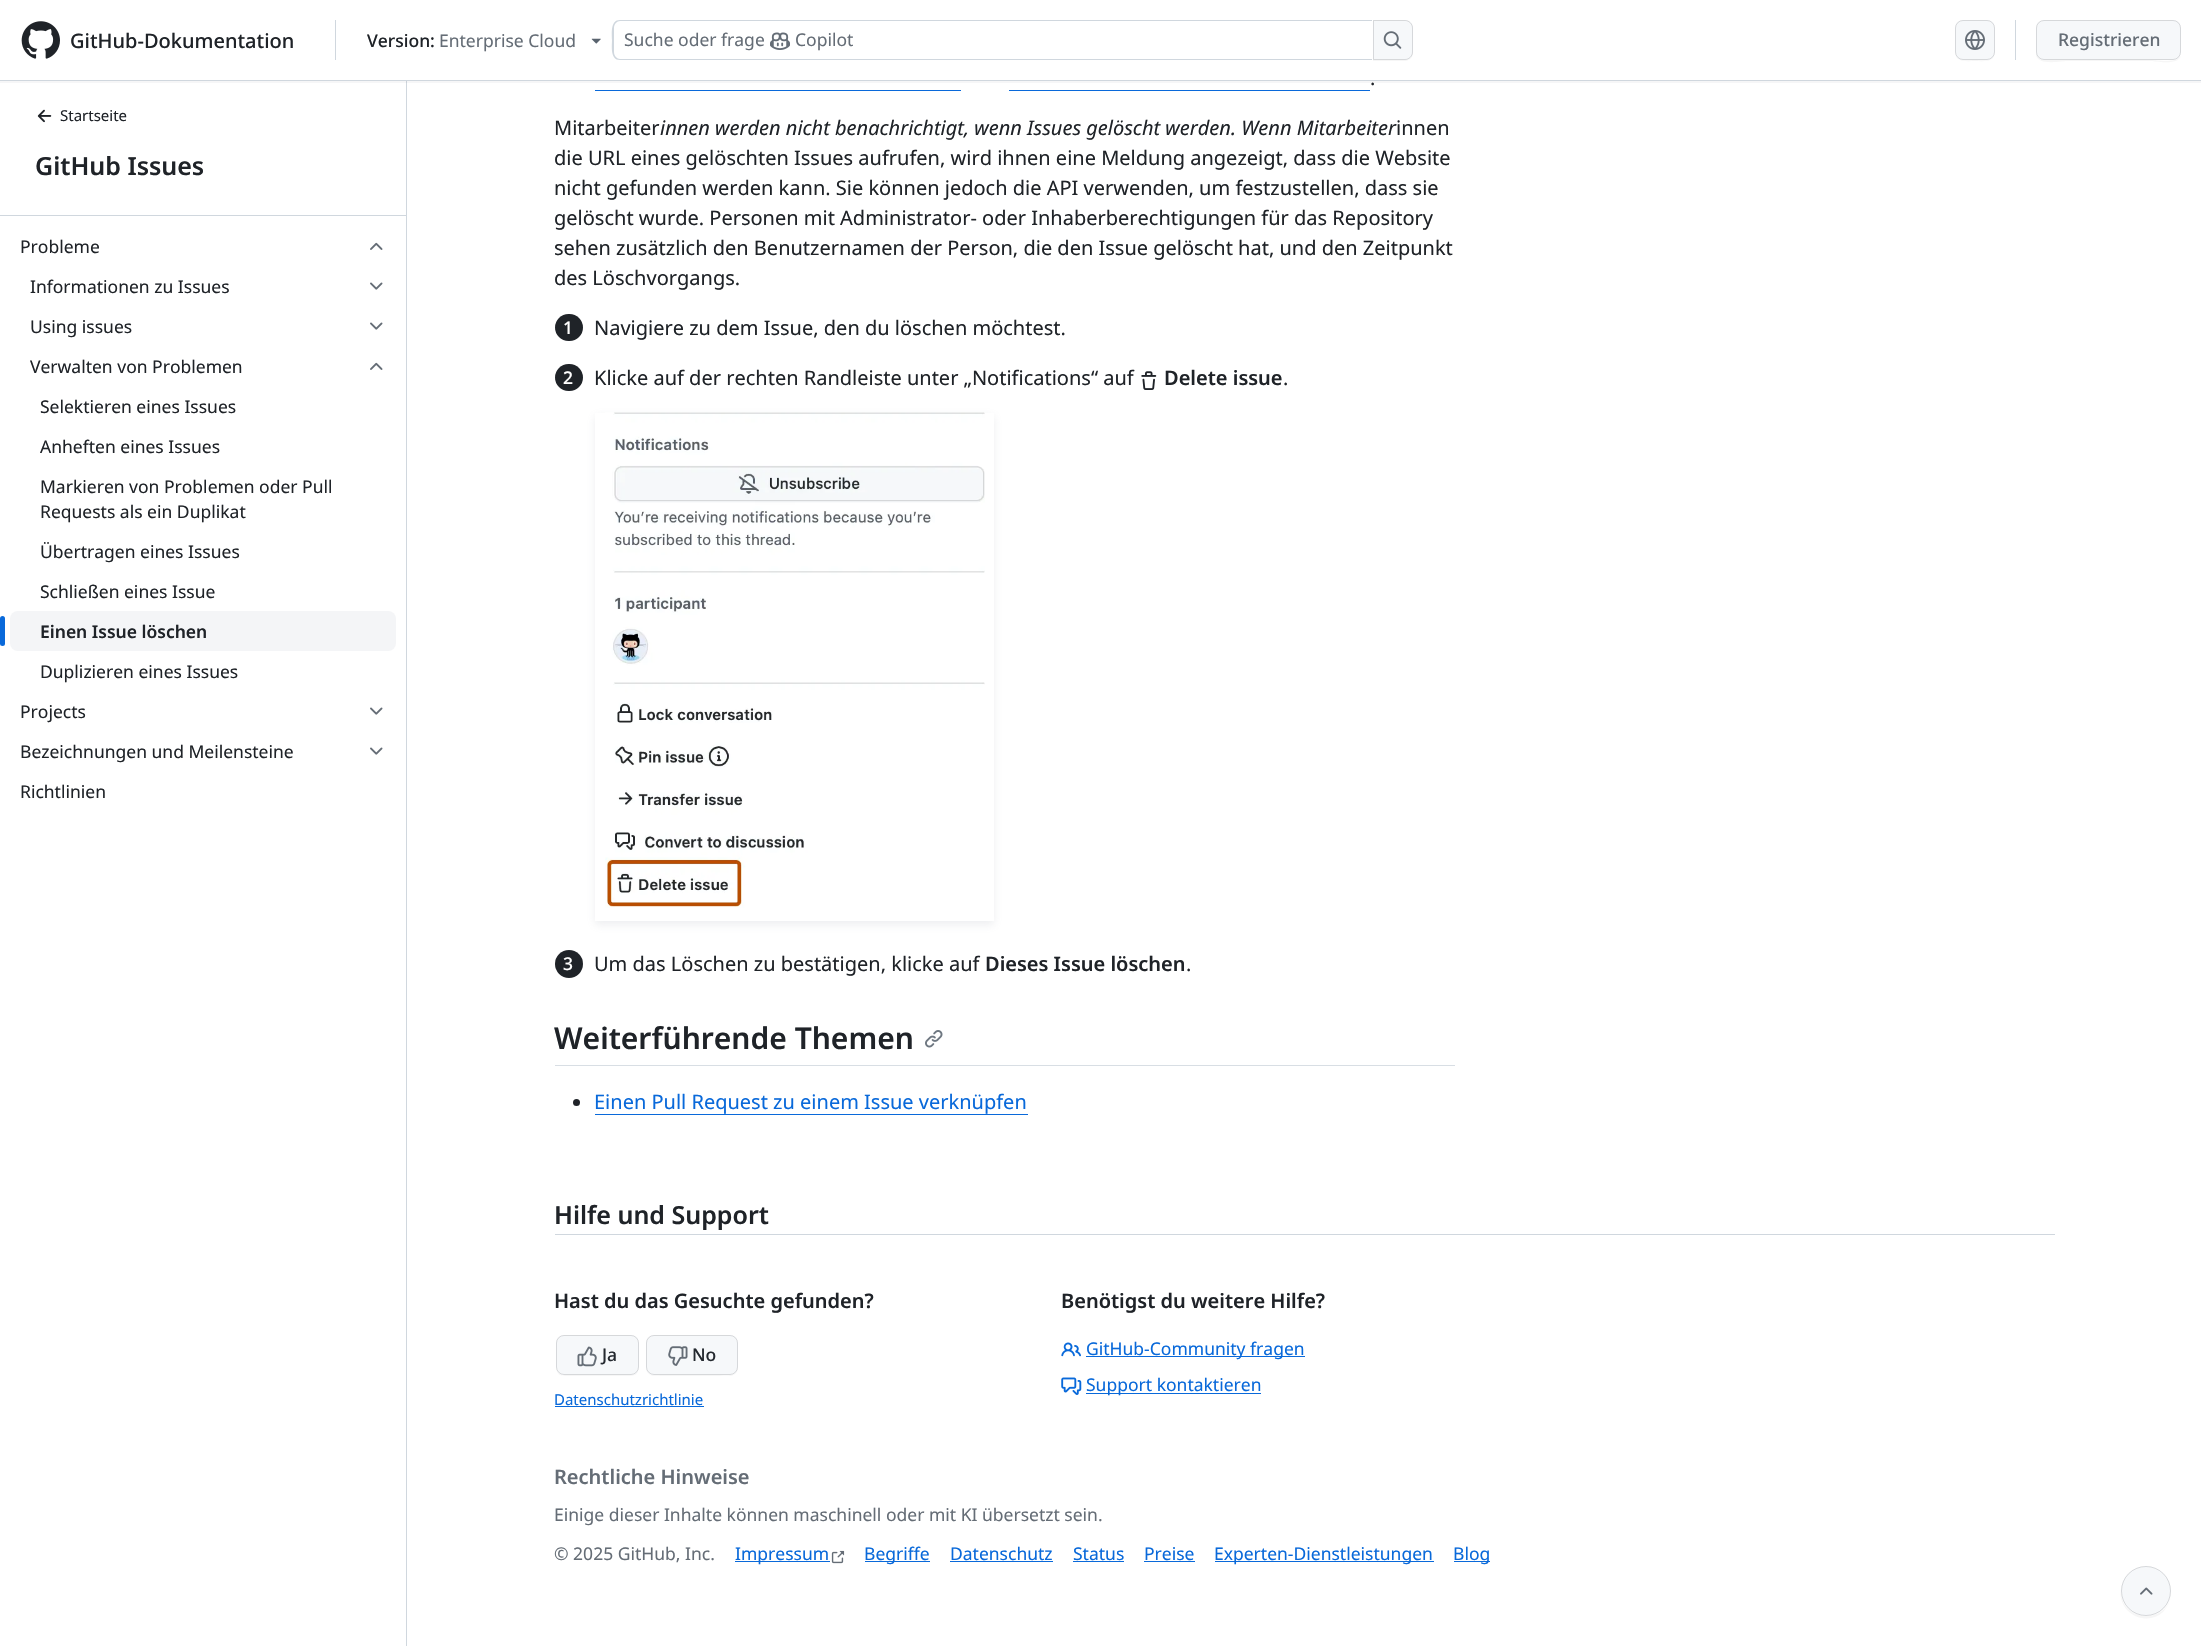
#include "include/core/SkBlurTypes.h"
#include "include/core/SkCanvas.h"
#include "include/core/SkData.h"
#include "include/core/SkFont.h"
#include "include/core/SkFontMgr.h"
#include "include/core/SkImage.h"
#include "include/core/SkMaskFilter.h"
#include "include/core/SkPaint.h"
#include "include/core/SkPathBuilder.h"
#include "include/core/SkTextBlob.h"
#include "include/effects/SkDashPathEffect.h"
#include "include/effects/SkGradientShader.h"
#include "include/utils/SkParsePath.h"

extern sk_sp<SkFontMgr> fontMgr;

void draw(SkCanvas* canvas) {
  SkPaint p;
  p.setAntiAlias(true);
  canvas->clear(SK_ColorWHITE);
  p.setColor(SkColorSetRGB(208, 215, 222));
  canvas->drawRect(SkRect::MakeLTRB(406, 81, 407, 1646), p);
  p.setColor(SkColorSetARGB(10, 31, 35, 40));
  canvas->drawRect(SkRect::MakeLTRB(0, 81, 2201, 83), p);
  p.setColor(SkColorSetRGB(208, 215, 222));
  canvas->drawRect(SkRect::MakeLTRB(0, 80, 2201, 81), p);
  canvas->drawImageRect(SkImages::DeferredFromEncodedData(SkData::MakeFromFileName("images/1.png")), SkRect::MakeLTRB(21, 21, 60, 59), SkSamplingOptions());
  canvas->drawRect(SkRect::MakeLTRB(335, 20, 336, 60), p);
  canvas->drawImageRect(SkImages::DeferredFromEncodedData(SkData::MakeFromFileName("images/2.png")), SkRect::MakeLTRB(591, 38, 601, 44), SkSamplingOptions());
  canvas->drawPath(SkPathBuilder(SkPathFillType::kEvenOdd).moveTo(620, 20).lineTo(1372, 20).lineTo(1372, 60).lineTo(620, 60).cubicTo(610, 60, 612, 46, 612, 40).cubicTo(612, 34, 610, 20, 620, 20).close().moveTo(620, 21).lineTo(1372, 21).lineTo(1372, 59).lineTo(620, 59).cubicTo(617, 59, 614, 56, 614, 52).lineTo(614, 28).cubicTo(614, 24, 617, 21, 620, 21).close().detach(), p);
  canvas->drawImageRect(SkImages::DeferredFromEncodedData(SkData::MakeFromFileName("images/3.png")), SkRect::MakeLTRB(770, 32, 790, 50), SkSamplingOptions());
  p.setColor(SkColorSetRGB(246, 246, 246));
  canvas->drawPath(SkPathBuilder().moveTo(1373, 60).lineTo(1373, 61).lineTo(1405, 61).cubicTo(1409, 61, 1413, 57, 1413, 53).lineTo(1413, 29).lineTo(1412, 26).lineTo(1412, 44).cubicTo(1412, 57, 1413, 60, 1400, 60).close().detach(), p);
  p.setColor(SkColorSetRGB(246, 248, 250));
  canvas->drawPath(SkPathBuilder().moveTo(1373, 20).lineTo(1405, 20).cubicTo(1409.5f, 20, 1413, 23.5f, 1413, 28).lineTo(1413, 52).cubicTo(1413, 56.5f, 1409.5f, 60, 1405, 60).lineTo(1373, 60).close().detach(), p);
  p.setStyle(SkPaint::kStroke_Style);
  p.setStrokeWidth(1);
  p.setColor(SkColorSetARGB(38, 31, 35, 40));
  canvas->drawPath(SkPathBuilder().moveTo(1373.5f, 20.5f).lineTo(1405, 20.5f).cubicTo(1409, 20.5f, 1412.5f, 24, 1412.5f, 28).lineTo(1412.5f, 52).cubicTo(1412.5f, 56, 1409, 59.5f, 1405, 59.5f).lineTo(1373.5f, 59.5f).close().detach(), p);
  canvas->drawImageRect(SkImages::DeferredFromEncodedData(SkData::MakeFromFileName("images/4.png")), SkRect::MakeLTRB(1383, 31, 1402, 49), SkSamplingOptions());
  p.setStyle(SkPaint::kFill_Style);
  p.setColor(SkColorSetRGB(246, 246, 246));
  canvas->drawPath(SkPathBuilder().moveTo(1955, 52).cubicTo(1955, 63, 1968, 61, 1975, 61).cubicTo(1982, 61, 1995, 63, 1995, 52).cubicTo(1995, 63, 1981, 60, 1975, 60).cubicTo(1969, 60, 1955, 63, 1955, 52).close().detach(), p);
  p.setColor(SkColorSetRGB(246, 248, 250));
  canvas->drawRoundRect(SkRect::MakeLTRB(1955, 20, 1995, 60), 8, 8, p);
  p.setStyle(SkPaint::kStroke_Style);
  p.setColor(SkColorSetARGB(38, 31, 35, 40));
  canvas->drawRoundRect(SkRect::MakeLTRB(1955.5f, 20.5f, 1994.5f, 59.5f), 7.5f, 7.5f, p);
  canvas->drawImageRect(SkImages::DeferredFromEncodedData(SkData::MakeFromFileName("images/5.png")), SkRect::MakeLTRB(1965, 30, 1985, 50), SkSamplingOptions());
  p.setStyle(SkPaint::kFill_Style);
  p.setColor(SkColorSetRGB(208, 215, 222));
  canvas->drawRect(SkRect::MakeLTRB(2015, 20, 2016, 60), p);
  p.setColor(SkColorSetRGB(246, 246, 246));
  canvas->drawPath(SkPathBuilder().moveTo(2036, 27).lineTo(2036, 55).cubicTo(2038, 66, 2062, 61, 2066, 61).lineTo(2152, 61).cubicTo(2155, 61, 2177, 66, 2181, 56).cubicTo(2176, 64, 2154, 60, 2152, 60).lineTo(2044, 60).cubicTo(2037, 60, 2036, 54, 2036, 48).close().detach(), p);
  p.setColor(SkColorSetRGB(246, 248, 250));
  canvas->drawRoundRect(SkRect::MakeLTRB(2036, 20, 2181, 60), 8, 8, p);
  p.setStyle(SkPaint::kStroke_Style);
  p.setColor(SkColorSetARGB(38, 31, 35, 40));
  canvas->drawRoundRect(SkRect::MakeLTRB(2036.5f, 20.5f, 2180.5f, 59.5f), 7.5f, 7.5f, p);
  p.setStyle(SkPaint::kFill_Style);
  p.setColor(SkColorSetRGB(208, 215, 222));
  canvas->drawRect(SkRect::MakeLTRB(0, 215, 406, 216), p);
  canvas->drawImageRect(SkImages::DeferredFromEncodedData(SkData::MakeFromFileName("images/6.png")), SkRect::MakeLTRB(37, 109, 52, 123), SkSamplingOptions());
  canvas->drawImageRect(SkImages::DeferredFromEncodedData(SkData::MakeFromFileName("images/7.png")), SkRect::MakeLTRB(370, 242, 383, 250), SkSamplingOptions());
  canvas->drawImageRect(SkImages::DeferredFromEncodedData(SkData::MakeFromFileName("images/8.png")), SkRect::MakeLTRB(370, 282, 383, 290), SkSamplingOptions());
  canvas->drawImageRect(SkImages::DeferredFromEncodedData(SkData::MakeFromFileName("images/8.png")), SkRect::MakeLTRB(370, 322, 383, 330), SkSamplingOptions());
  canvas->drawImageRect(SkImages::DeferredFromEncodedData(SkData::MakeFromFileName("images/7.png")), SkRect::MakeLTRB(370, 362, 383, 370), SkSamplingOptions());
  p.setColor(SkColorSetRGB(244, 245, 247));
  canvas->drawRoundRect(SkRect::MakeLTRB(10, 611, 396, 651), 8, 8, p);
  p.setColor(SkColorSetRGB(9, 105, 218));
  canvas->drawRoundRect(SkRect::MakeLTRB(0, 616, 5, 646), 2.5f, 2.5f, p);
  canvas->drawImageRect(SkImages::DeferredFromEncodedData(SkData::MakeFromFileName("images/8.png")), SkRect::MakeLTRB(370, 707, 383, 715), SkSamplingOptions());
  canvas->drawImageRect(SkImages::DeferredFromEncodedData(SkData::MakeFromFileName("images/8.png")), SkRect::MakeLTRB(370, 747, 383, 755), SkSamplingOptions());
  canvas->drawRect(SkRect::MakeLTRB(595, 90, 961, 91), p);
  canvas->drawRect(SkRect::MakeLTRB(1009, 90, 1370, 91), p);
  p.setColor(SkColorSetRGB(31, 35, 40));
  canvas->drawRoundRect(SkRect::MakeLTRB(555, 314, 583, 341), 13.5f, 13.5f, p);
  canvas->drawRoundRect(SkRect::MakeLTRB(555, 364, 583, 391), 13.5f, 13.5f, p);
  canvas->drawImageRect(SkImages::DeferredFromEncodedData(SkData::MakeFromFileName("images/9.png")), SkRect::MakeLTRB(1141, 371, 1157, 390), SkSamplingOptions());
  p.setColor(SkColorSetARGB(38, 140, 149, 159));
  p.setMaskFilter(SkMaskFilter::MakeBlur(kNormal_SkBlurStyle, 4));
  canvas->drawRect(SkRect::MakeLTRB(595, 416, 994, 925), p);
  p.setMaskFilter(nullptr);
  p.setColor(SK_ColorWHITE);
  canvas->drawRect(SkRect::MakeLTRB(595, 413, 994, 921), p);
  canvas->drawImageRect(SkImages::DeferredFromEncodedData(SkData::MakeFromFileName("images/10.png")), SkRect::MakeLTRB(605, 412, 985, 908), SkSamplingOptions());
  p.setColor(SkColorSetRGB(31, 35, 40));
  canvas->drawCircle(569, 964, 14, p);
  p.setColor(SkColorSetRGB(216, 222, 228));
  canvas->drawRect(SkRect::MakeLTRB(555, 1065, 1455, 1066), p);
  canvas->drawImageRect(SkImages::DeferredFromEncodedData(SkData::MakeFromFileName("images/11.png")), SkRect::MakeLTRB(925, 1030, 943, 1048), SkSamplingOptions());
  p.setColor(SkColorSetRGB(31, 35, 40));
  canvas->drawCircle(576.5f, 1102.5f, 3.5f, p);
  p.setColor(SkColorSetRGB(9, 105, 218));
  canvas->drawRect(SkRect::MakeLTRB(595, 1114, 1028, 1115), p);
  p.setColor(SkColorSetRGB(208, 215, 222));
  canvas->drawRect(SkRect::MakeLTRB(555, 1234, 2055, 1235), p);
  p.setColor(SkColorSetRGB(246, 246, 246));
  canvas->drawPath(SkPathBuilder().moveTo(556, 1342).lineTo(556, 1360).cubicTo(556, 1377, 558, 1376, 575, 1376).lineTo(620, 1376).cubicTo(637, 1376, 639, 1377, 639, 1360).lineTo(639, 1342).lineTo(639, 1359).cubicTo(639, 1376, 638, 1375, 620, 1375).lineTo(575, 1375).cubicTo(557, 1375, 556, 1376, 556, 1359).close().detach(), p);
  p.setColor(SkColorSetRGB(246, 248, 250));
  canvas->drawRoundRect(SkRect::MakeLTRB(556, 1335, 639, 1375), 8, 8, p);
  p.setStyle(SkPaint::kStroke_Style);
  p.setColor(SkColorSetARGB(38, 31, 35, 40));
  canvas->drawRoundRect(SkRect::MakeLTRB(556.5f, 1335.5f, 638.5f, 1374.5f), 7.5f, 7.5f, p);
  canvas->drawImageRect(SkImages::DeferredFromEncodedData(SkData::MakeFromFileName("images/12.png")), SkRect::MakeLTRB(577, 1346, 597, 1367), SkSamplingOptions());
  p.setStyle(SkPaint::kFill_Style);
  p.setColor(SkColorSetRGB(246, 246, 246));
  canvas->drawPath(SkPathBuilder().moveTo(646, 1342).lineTo(646, 1368).cubicTo(646, 1372, 650, 1376, 654, 1376).lineTo(730, 1376).cubicTo(734, 1376, 738, 1372, 738, 1368).lineTo(738, 1344).lineTo(737, 1341).lineTo(737, 1369).cubicTo(736, 1378, 723, 1375, 717, 1375).lineTo(666, 1375).cubicTo(653, 1375, 646, 1378, 646, 1363).close().detach(), p);
  p.setColor(SkColorSetRGB(246, 248, 250));
  canvas->drawRoundRect(SkRect::MakeLTRB(646, 1335, 738, 1375), 8, 8, p);
  p.setStyle(SkPaint::kStroke_Style);
  p.setColor(SkColorSetARGB(38, 31, 35, 40));
  canvas->drawRoundRect(SkRect::MakeLTRB(646.5f, 1335.5f, 737.5f, 1374.5f), 7.5f, 7.5f, p);
  canvas->drawImageRect(SkImages::DeferredFromEncodedData(SkData::MakeFromFileName("images/13.png")), SkRect::MakeLTRB(668, 1346, 688, 1366), SkSamplingOptions());
  p.setStyle(SkPaint::kFill_Style);
  p.setColor(SkColorSetRGB(9, 105, 218));
  canvas->drawRect(SkRect::MakeLTRB(555, 1406, 704, 1407), p);
  canvas->drawImageRect(SkImages::DeferredFromEncodedData(SkData::MakeFromFileName("images/14.png")), SkRect::MakeLTRB(1061, 1342, 1081, 1357), SkSamplingOptions());
  canvas->drawRect(SkRect::MakeLTRB(1086, 1356, 1305, 1357), p);
  canvas->drawImageRect(SkImages::DeferredFromEncodedData(SkData::MakeFromFileName("images/15.png")), SkRect::MakeLTRB(1061, 1377, 1082, 1395), SkSamplingOptions());
  canvas->drawRect(SkRect::MakeLTRB(1086, 1393, 1261, 1394), p);
  canvas->drawRect(SkRect::MakeLTRB(735, 1561, 830, 1562), p);
  canvas->drawImageRect(SkImages::DeferredFromEncodedData(SkData::MakeFromFileName("images/16.png")), SkRect::MakeLTRB(831, 1550, 845, 1564), SkSamplingOptions());
  canvas->drawRect(SkRect::MakeLTRB(865, 1561, 930, 1562), p);
  canvas->drawRect(SkRect::MakeLTRB(950, 1561, 1053, 1562), p);
  canvas->drawRect(SkRect::MakeLTRB(1073, 1561, 1124, 1562), p);
  canvas->drawRect(SkRect::MakeLTRB(1144, 1561, 1195, 1562), p);
  canvas->drawRect(SkRect::MakeLTRB(1215, 1561, 1434, 1562), p);
  canvas->drawRect(SkRect::MakeLTRB(1454, 1561, 1490, 1562), p);
  p.setColor(SkColorSetRGB(246, 246, 246));
  canvas->drawPath(SkPathBuilder().moveTo(2121, 1589).cubicTo(2117, 1612, 2145, 1628, 2163, 1612).cubicTo(2167, 1607, 2170, 1602, 2171, 1596).cubicTo(2165, 1627, 2118, 1620, 2121, 1589).close().detach(), p);
  p.setColor(SkColorSetRGB(246, 248, 250));
  canvas->drawCircle(2146, 1591, 25, p);
  p.setStyle(SkPaint::kStroke_Style);
  p.setColor(SkColorSetARGB(38, 31, 35, 40));
  canvas->drawCircle(2146, 1591, 24.5f, p);
  canvas->drawImageRect(SkImages::DeferredFromEncodedData(SkData::MakeFromFileName("images/17.png")), SkRect::MakeLTRB(2140, 1587, 2153, 1595), SkSamplingOptions());
  SkFont font1(fontMgr->matchFamilyStyle("Noto Sans", SkFontStyle(500, SkFontStyle::kNormal_Width, SkFontStyle::kUpright_Slant)), 20);
  font1.setSubpixel(true);
  p.setStyle(SkPaint::kFill_Style);
  p.setColor(SkColorSetRGB(31, 35, 40));
  canvas->drawString("GitHub-Dokumentation", 70, 48, font1, p);
  SkFont font2(fontMgr->matchFamilyStyle("Noto Sans", SkFontStyle(500, SkFontStyle::kNormal_Width, SkFontStyle::kUpright_Slant)), 17.5f);
  font2.setSubpixel(true);
  canvas->drawString("Version:", 367, 47, font2, p);
  SkFont font3(fontMgr->matchFamilyStyle("Noto Sans", SkFontStyle::Normal()), 17.5f);
  font3.setSubpixel(true);
  p.setColor(SkColorSetRGB(101, 109, 118));
  canvas->drawString("Enterprise Cloud", 439, 47, font3, p);
  canvas->drawString("Suche oder frage", 624, 46, font3, p);
  canvas->drawString("Copilot", 795, 46, font3, p);
  canvas->drawString("Registrieren", 2058, 46, font2, p);
  SkFont font4(fontMgr->matchFamilyStyle("Noto Sans", SkFontStyle::Normal()), 15);
  font4.setSubpixel(true);
  p.setColor(SkColorSetRGB(31, 35, 40));
  canvas->drawString("Startseite", 60, 121, font4, p);
  SkFont font5(fontMgr->matchFamilyStyle("Noto Sans", SkFontStyle(600, SkFontStyle::kNormal_Width, SkFontStyle::kUpright_Slant)), 25);
  font5.setSubpixel(true);
  canvas->drawString("GitHub Issues", 35, 175, font5, p);
  canvas->drawString("Probleme", 20, 253, font3, p);
  canvas->drawString("Informationen zu Issues", 30, 293, font3, p);
  canvas->drawString("Using issues", 30, 333, font3, p);
  canvas->drawString("Verwalten von Problemen", 30, 373, font3, p);
  canvas->drawString("Selektieren eines Issues", 40, 413, font3, p);
  canvas->drawString("Anheften eines Issues", 40, 453, font3, p);
  canvas->drawString("Markieren von Problemen oder Pull", 40, 493, font3, p);
  canvas->drawString("Requests als ein Duplikat", 40, 518, font3, p);
  canvas->drawString("Übertragen eines Issues", 40, 558, font3, p);
  canvas->drawString("Schließen eines Issue", 40, 598, font3, p);
  SkFont font6(fontMgr->matchFamilyStyle("Noto Sans", SkFontStyle(600, SkFontStyle::kNormal_Width, SkFontStyle::kUpright_Slant)), 17.5f);
  font6.setSubpixel(true);
  canvas->drawString("Einen Issue löschen", 40, 638, font6, p);
  canvas->drawString("Duplizieren eines Issues", 40, 678, font3, p);
  canvas->drawString("Projects", 20, 718, font3, p);
  canvas->drawString("Bezeichnungen und Meilensteine", 20, 758, font3, p);
  canvas->drawString("Richtlinien", 20, 798, font3, p);
  SkFont font7(fontMgr->matchFamilyStyle("Noto Sans", SkFontStyle::Normal()), 20);
  font7.setSubpixel(true);
  canvas->drawString(".", 1370, 85, font7, p);
  canvas->drawString("Mitarbeiter", 554, 135, font7, p);
  SkFont font8(fontMgr->matchFamilyStyle("Noto Sans", SkFontStyle::Italic()), 20);
  font8.setSubpixel(true);
  canvas->drawString("innen werden nicht benachrichtigt, wenn Issues gelöscht werden. Wenn Mitarbeiter", 660, 135, font8, p);
  canvas->drawString("innen", 1396, 135, font7, p);
  canvas->drawString("die URL eines gelöschten Issues aufrufen, wird ihnen eine Meldung angezeigt, dass die Website", 554, 165, font7, p);
  canvas->drawString("nicht gefunden werden kann. Sie können jedoch die API verwenden, um festzustellen, dass sie", 554, 195, font7, p);
  canvas->drawString("gelöscht wurde. Personen mit Administrator- oder Inhaberberechtigungen für das Repository", 554, 225, font7, p);
  canvas->drawString("sehen zusätzlich den Benutzernamen der Person, die den Issue gelöscht hat, und den Zeitpunkt", 554, 255, font7, p);
  canvas->drawString("des Löschvorgangs.", 554, 285, font7, p);
  p.setColor(SK_ColorWHITE);
  canvas->drawString("1", 563, 334, font2, p);
  p.setColor(SkColorSetRGB(31, 35, 40));
  canvas->drawString("Navigiere zu dem Issue, den du löschen möchtest.", 594, 335, font7, p);
  p.setColor(SK_ColorWHITE);
  canvas->drawString("2", 563, 384, font2, p);
  p.setColor(SkColorSetRGB(31, 35, 40));
  canvas->drawString("Klicke auf der rechten Randleiste unter „Notifications“ auf", 594, 385, font7, p);
  SkFont font9(fontMgr->matchFamilyStyle("Noto Sans", SkFontStyle(600, SkFontStyle::kNormal_Width, SkFontStyle::kUpright_Slant)), 20);
  font9.setSubpixel(true);
  canvas->drawString("Delete issue", 1164, 385, font9, p);
  canvas->drawString(".", 1283, 385, font7, p);
  p.setColor(SK_ColorWHITE);
  canvas->drawString("3", 563, 970, font2, p);
  p.setColor(SkColorSetRGB(31, 35, 40));
  canvas->drawString("Um das Löschen zu bestätigen, klicke auf", 594, 971, font7, p);
  canvas->drawString("Dieses Issue löschen", 985, 971, font9, p);
  canvas->drawString(".", 1186, 971, font7, p);
  SkFont font10(fontMgr->matchFamilyStyle("Noto Sans", SkFontStyle(600, SkFontStyle::kNormal_Width, SkFontStyle::kUpright_Slant)), 30);
  font10.setSubpixel(true);
  canvas->drawString("Weiterführende Themen", 554, 1049, font10, p);
  p.setColor(SkColorSetRGB(9, 105, 218));
  canvas->drawString("Einen Pull Request zu einem Issue verknüpfen", 594, 1109, font7, p);
  p.setColor(SkColorSetRGB(31, 35, 40));
  canvas->drawString("Hilfe und Support", 554, 1224, font5, p);
  canvas->drawString("Hast du das Gesuchte gefunden?", 554, 1308, font9, p);
  p.setColor(SkColorSetRGB(36, 41, 47));
  canvas->drawString("Ja", 602, 1361, font2, p);
  canvas->drawString("No", 692, 1361, font2, p);
  p.setColor(SkColorSetRGB(9, 105, 218));
  canvas->drawString("Datenschutzrichtlinie", 554, 1405, font4, p);
  p.setColor(SkColorSetRGB(31, 35, 40));
  canvas->drawString("Benötigst du weitere Hilfe?", 1061, 1308, font9, p);
  p.setColor(SkColorSetRGB(9, 105, 218));
  canvas->drawString("GitHub-Community fragen", 1086, 1355, font3, p);
  canvas->drawString("Support kontaktieren", 1086, 1391, font3, p);
  p.setColor(SkColorSetRGB(101, 109, 118));
  canvas->drawString("Rechtliche Hinweise", 554, 1484, font9, p);
  canvas->drawString("Einige dieser Inhalte können maschinell oder mit KI übersetzt sein.", 554, 1521, font3, p);
  canvas->drawString("© 2025 GitHub, Inc.", 554, 1560, font3, p);
  p.setColor(SkColorSetRGB(9, 105, 218));
  canvas->drawString("Impressum", 735, 1560, font3, p);
  canvas->drawString("Begriffe", 864, 1560, font3, p);
  canvas->drawString("Datenschutz", 950, 1560, font3, p);
  canvas->drawString("Status", 1073, 1560, font3, p);
  canvas->drawString("Preise", 1144, 1560, font3, p);
  canvas->drawString("Experten-Dienstleistungen", 1214, 1560, font3, p);
  canvas->drawString("Blog", 1453, 1560, font3, p);
}
